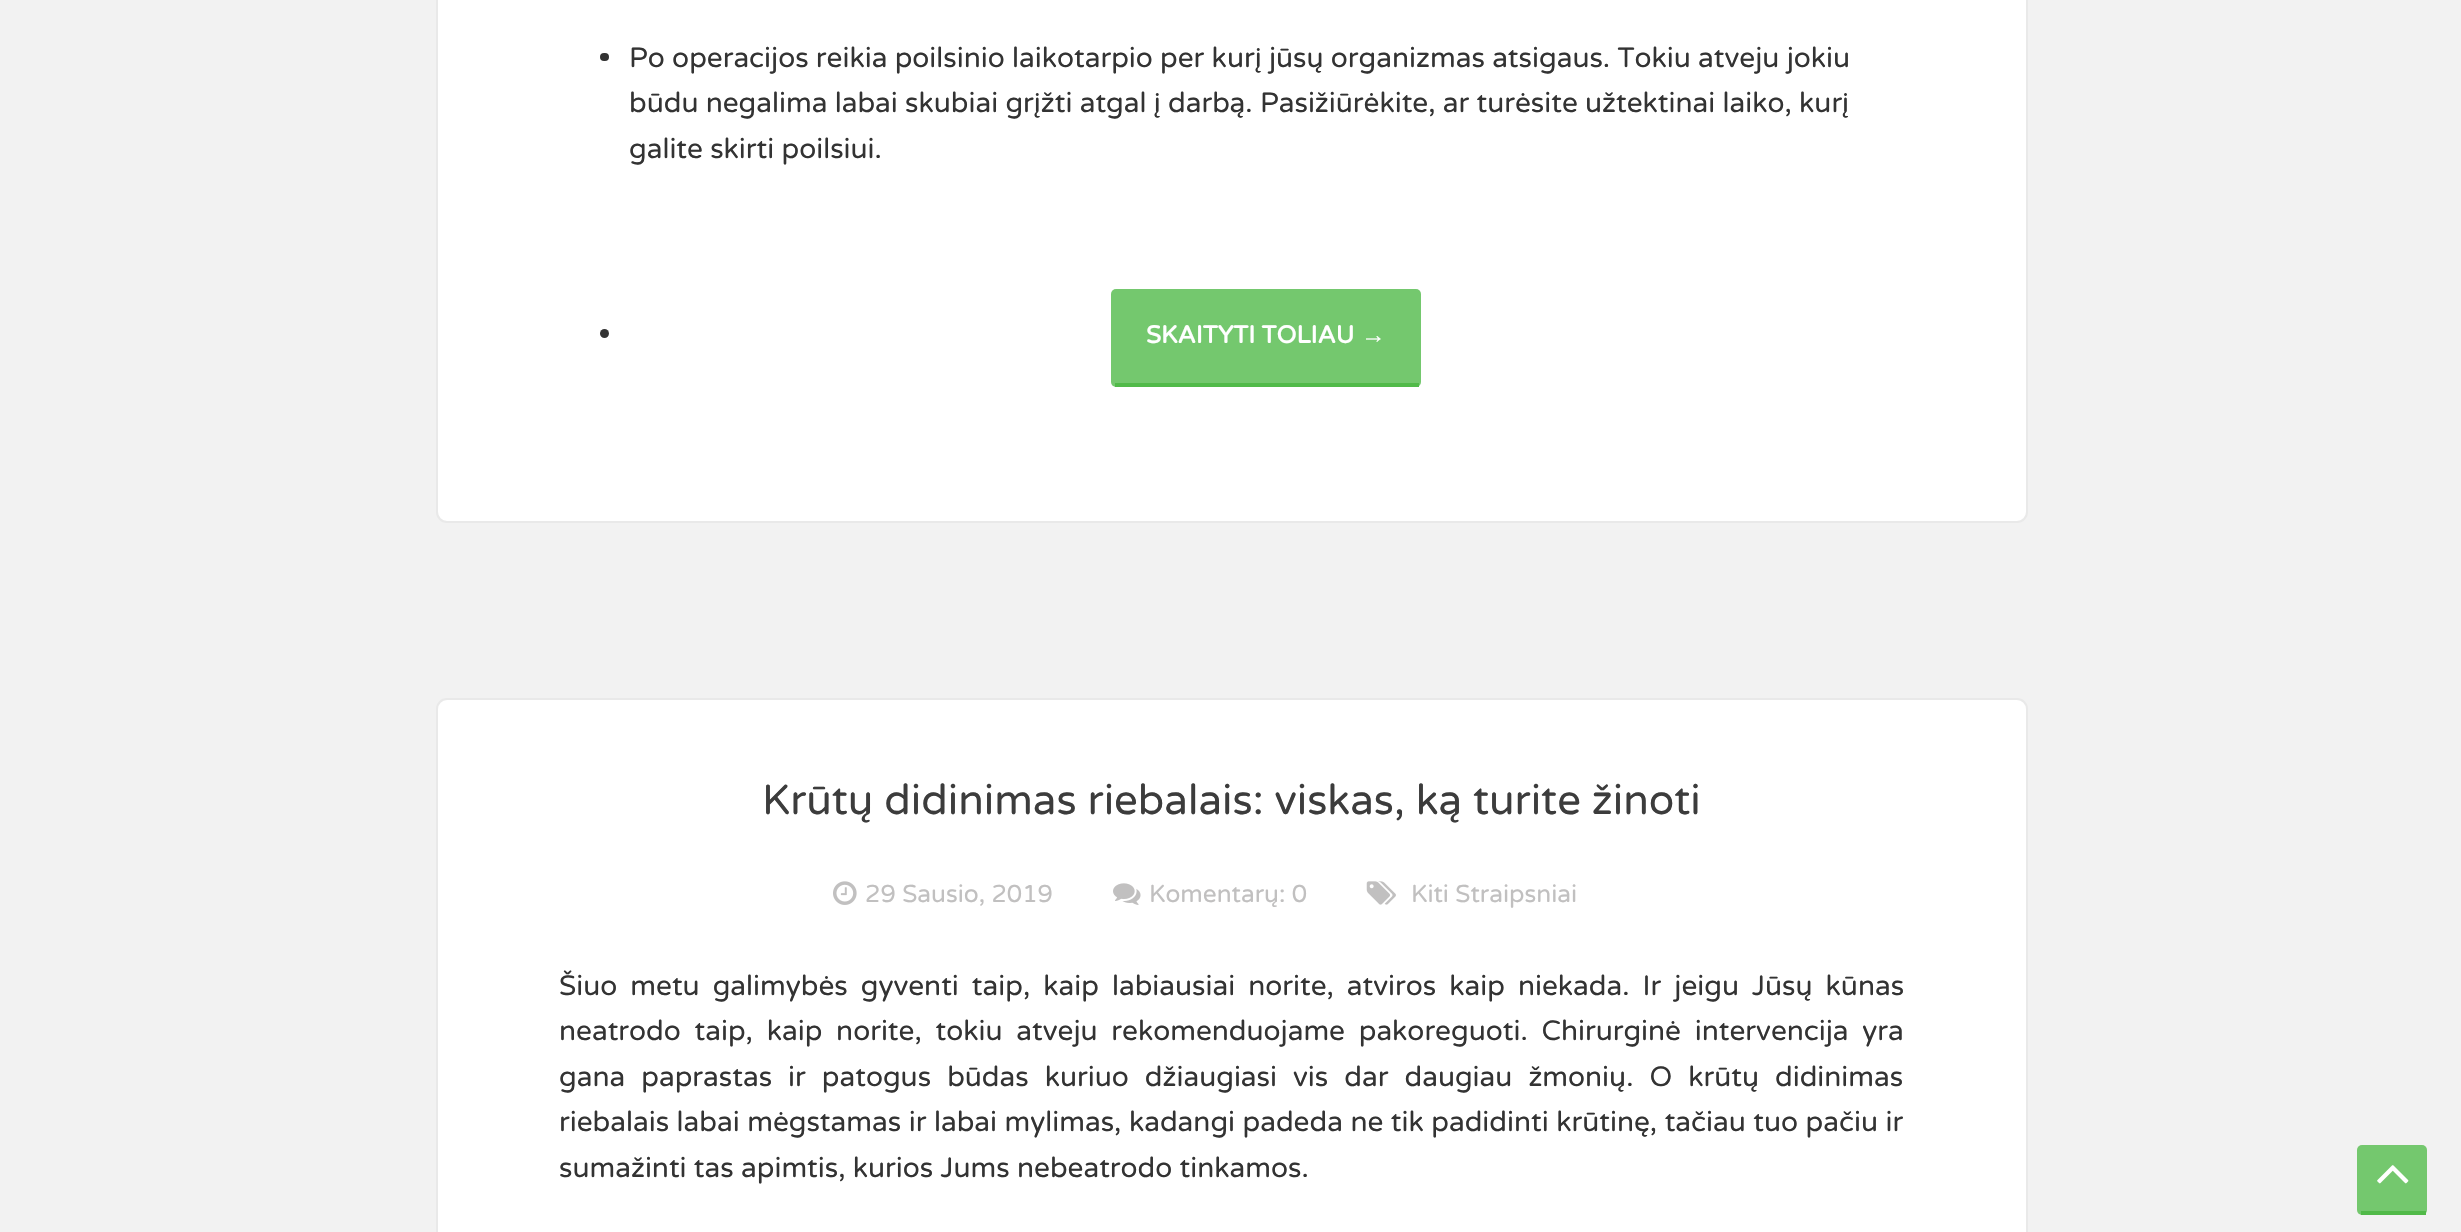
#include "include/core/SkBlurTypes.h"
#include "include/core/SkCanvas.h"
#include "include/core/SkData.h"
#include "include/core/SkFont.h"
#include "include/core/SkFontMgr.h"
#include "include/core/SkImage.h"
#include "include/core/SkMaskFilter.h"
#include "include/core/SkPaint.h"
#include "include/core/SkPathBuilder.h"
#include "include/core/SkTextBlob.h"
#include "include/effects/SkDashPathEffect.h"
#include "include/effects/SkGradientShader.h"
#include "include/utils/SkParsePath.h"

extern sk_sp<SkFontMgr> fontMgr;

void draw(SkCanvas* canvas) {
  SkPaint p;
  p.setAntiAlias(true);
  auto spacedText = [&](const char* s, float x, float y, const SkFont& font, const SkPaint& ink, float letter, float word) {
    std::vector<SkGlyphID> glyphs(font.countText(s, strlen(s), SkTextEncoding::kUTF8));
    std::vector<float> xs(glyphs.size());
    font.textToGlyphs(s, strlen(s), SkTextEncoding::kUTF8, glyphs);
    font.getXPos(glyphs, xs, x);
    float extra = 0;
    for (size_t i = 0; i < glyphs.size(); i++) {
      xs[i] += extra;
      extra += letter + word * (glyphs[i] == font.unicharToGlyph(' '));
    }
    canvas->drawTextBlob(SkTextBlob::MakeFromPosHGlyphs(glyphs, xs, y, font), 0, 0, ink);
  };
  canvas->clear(SkColorSetRGB(242, 242, 242));
  p.setColor(SK_ColorWHITE);
  canvas->drawRoundRect(SkRect::MakeLTRB(437, -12, 2027, 522), 10, 10, p);
  p.setStyle(SkPaint::kStroke_Style);
  p.setStrokeWidth(2);
  p.setColor(SkColorSetRGB(233, 233, 233));
  canvas->drawRoundRect(SkRect::MakeLTRB(437, -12, 2027, 522), 10, 10, p);
  p.setStyle(SkPaint::kFill_Style);
  p.setColor(SkColorSetRGB(51, 51, 51));
  canvas->drawRoundRect(SkRect::MakeLTRB(600, 53, 609, 61), 4, 4, p);
  canvas->drawCircle(604.5f, 333.5f, 4.5f, p);
  p.setColor(SkColorSetRGB(116, 200, 110));
  canvas->drawRoundRect(SkRect::MakeLTRB(1111, 289, 1421, 387), 5, 5, p);
  p.setColor(SkColorSetRGB(81, 186, 73));
  canvas->drawRect(SkRect::MakeLTRB(1115, 383, 1419, 387), p);
  p.setColor(SK_ColorWHITE);
  canvas->drawRoundRect(SkRect::MakeLTRB(437, 699, 2027, 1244), 10, 10, p);
  p.setStyle(SkPaint::kStroke_Style);
  p.setColor(SkColorSetRGB(233, 233, 233));
  canvas->drawRoundRect(SkRect::MakeLTRB(437, 699, 2027, 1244), 10, 10, p);
  canvas->drawImageRect(SkImages::DeferredFromEncodedData(SkData::MakeFromFileName("images/1.png")), SkRect::MakeLTRB(833, 881, 857, 905), SkSamplingOptions());
  canvas->drawImageRect(SkImages::DeferredFromEncodedData(SkData::MakeFromFileName("images/2.png")), SkRect::MakeLTRB(1113, 883, 1141, 905), SkSamplingOptions());
  canvas->drawImageRect(SkImages::DeferredFromEncodedData(SkData::MakeFromFileName("images/3.png")), SkRect::MakeLTRB(1366, 881, 1396, 905), SkSamplingOptions());
  p.setStyle(SkPaint::kFill_Style);
  p.setColor(SkColorSetRGB(116, 200, 110));
  canvas->drawRoundRect(SkRect::MakeLTRB(2357, 1145, 2427, 1215), 5, 5, p);
  p.setColor(SkColorSetRGB(81, 186, 73));
  canvas->drawRect(SkRect::MakeLTRB(2361, 1211, 2426, 1215), p);
  canvas->drawImageRect(SkImages::DeferredFromEncodedData(SkData::MakeFromFileName("images/4.png")), SkRect::MakeLTRB(2377, 1165, 2409, 1184), SkSamplingOptions());
  SkFont font1(fontMgr->matchFamilyStyle("Varela Round", SkFontStyle::Normal()), 28);
  font1.setSubpixel(true);
  p.setColor(SkColorSetRGB(51, 51, 51));
  canvas->drawString("Po operacijos reikia poilsinio laikotarpio per kurį jūsų organizmas atsigaus. Tokiu atveju jokiu", 629, 67, font1, p);
  canvas->drawString("būdu negalima labai skubiai grįžti atgal į darbą. Pasižiūrėkite, ar turėsite užtektinai laiko, kurį", 629, 112, font1, p);
  canvas->drawString("galite skirti poilsiui.", 629, 158, font1, p);
  SkFont font2(fontMgr->matchFamilyStyle("Varela Round", SkFontStyle::Bold()), 24.5f);
  font2.setSubpixel(true);
  p.setColor(SK_ColorWHITE);
  canvas->drawString("SKAITYTI TOLIAU", 1146, 343, font2, p);
  SkFont font3(fontMgr->matchFamilyStyle("Liberation Sans", SkFontStyle::Bold()), 24.5f);
  font3.setSubpixel(true);
  canvas->drawString("→", 1361, 343, font3, p);
  SkFont font4(fontMgr->matchFamilyStyle("Varela Round", SkFontStyle::Normal()), 42);
  font4.setSubpixel(true);
  p.setColor(SkColorSetRGB(60, 60, 60));
  canvas->drawString("Krūtų didinimas riebalais: viskas, ką turite žinoti", 762, 814, font4, p);
  SkFont font5(fontMgr->matchFamilyStyle("Varela Round", SkFontStyle::Normal()), 24.5f);
  font5.setSubpixel(true);
  p.setColor(SkColorSetRGB(193, 192, 192));
  canvas->drawString("29 Sausio, 2019", 865, 902, font5, p);
  canvas->drawString("Komentarų: 0", 1149, 902, font5, p);
  canvas->drawString("Kiti Straipsniai", 1411, 902, font5, p);
  p.setColor(SkColorSetRGB(51, 51, 51));
  spacedText("Šiuo metu galimybės gyventi taip, kaip labiausiai norite, atviros kaip niekada. Ir jeigu Jūsų kūnas", 559, 995, font1, p, 0, 5.75f);
  spacedText("neatrodo taip, kaip norite, tokiu atveju rekomenduojame pakoreguoti. Chirurginė intervencija yra", 559, 1040, font1, p, 0, 6.5f);
  spacedText("gana paprastas ir patogus būdas kuriuo džiaugiasi vis dar daugiau žmonių. O krūtų didinimas", 559, 1086, font1, p, 0, 8.75f);
  spacedText("riebalais labai mėgstamas ir labai mylimas, kadangi padeda ne tik padidinti krūtinę, tačiau tuo pačiu ir", 559, 1131, font1, p, 0, 0.25f);
  canvas->drawString("sumažinti tas apimtis, kurios Jums nebeatrodo tinkamos.", 559, 1177, font1, p);
}
